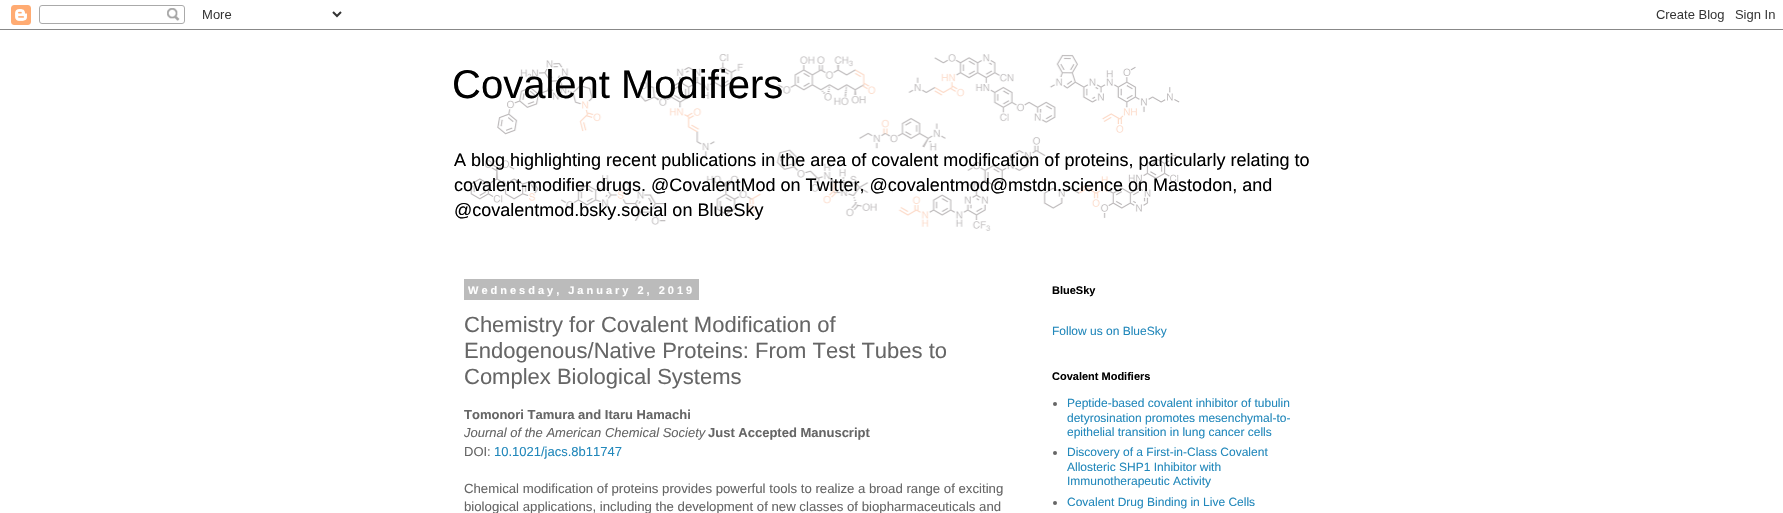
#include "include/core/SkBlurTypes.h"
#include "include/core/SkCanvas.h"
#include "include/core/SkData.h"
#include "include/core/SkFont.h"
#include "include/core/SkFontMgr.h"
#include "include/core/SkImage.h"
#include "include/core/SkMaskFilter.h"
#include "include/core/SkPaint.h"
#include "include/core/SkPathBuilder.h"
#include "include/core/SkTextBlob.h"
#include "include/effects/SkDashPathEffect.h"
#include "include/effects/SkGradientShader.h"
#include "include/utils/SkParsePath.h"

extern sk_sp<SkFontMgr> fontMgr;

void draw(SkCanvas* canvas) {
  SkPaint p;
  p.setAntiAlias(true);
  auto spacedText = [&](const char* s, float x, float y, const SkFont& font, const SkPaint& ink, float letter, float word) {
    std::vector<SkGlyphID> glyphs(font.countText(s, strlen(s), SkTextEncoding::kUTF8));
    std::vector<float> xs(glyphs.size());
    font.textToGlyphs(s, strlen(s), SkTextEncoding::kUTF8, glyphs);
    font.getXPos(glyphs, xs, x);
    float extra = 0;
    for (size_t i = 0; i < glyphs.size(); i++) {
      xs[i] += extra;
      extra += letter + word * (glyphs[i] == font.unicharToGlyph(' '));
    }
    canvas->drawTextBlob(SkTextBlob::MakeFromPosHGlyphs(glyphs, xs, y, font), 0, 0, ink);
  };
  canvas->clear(SK_ColorWHITE);
  canvas->drawImageRect(SkImages::DeferredFromEncodedData(SkData::MakeFromFileName("images/1.png")), SkRect::MakeLTRB(0, 5, 1783, 30), SkSamplingOptions());
  canvas->drawImageRect(SkImages::DeferredFromEncodedData(SkData::MakeFromFileName("images/2.png")), SkRect::MakeLTRB(470, 54, 1180, 231), SkSamplingOptions());
  p.setColor(SkColorSetRGB(187, 187, 187));
  canvas->drawRect(SkRect::MakeLTRB(464, 279, 699, 300), p);
  p.setColor(SkColorSetRGB(102, 102, 102));
  canvas->drawCircle(1055, 404, 2, p);
  canvas->drawCircle(1055, 453, 2, p);
  canvas->drawCircle(1055, 503, 2, p);
  SkFont font1(fontMgr->matchFamilyStyle("Liberation Sans", SkFontStyle::Normal()), 40);
  font1.setSubpixel(true);
  p.setColor(SK_ColorBLACK);
  canvas->drawString("Covalent Modifiers", 452, 98, font1, p);
  SkFont font2(fontMgr->matchFamilyStyle("Liberation Sans", SkFontStyle::Normal()), 18);
  font2.setSubpixel(true);
  canvas->drawString("A blog highlighting recent publications in the area of covalent modification of proteins, particularly relating to", 454, 166, font2, p);
  canvas->drawString("covalent-modifier drugs. @CovalentMod on Twitter, @covalentmod@mstdn.science on Mastodon, and", 454, 191, font2, p);
  canvas->drawString("@covalentmod.bsky.social on BlueSky", 454, 216, font2, p);
  SkFont font3(fontMgr->matchFamilyStyle("Liberation Sans", SkFontStyle::Bold()), 11);
  font3.setSubpixel(true);
  p.setColor(SK_ColorWHITE);
  spacedText("Wednesday, January 2, 2019", 468, 294, font3, p, 3, 0);
  SkFont font4(fontMgr->matchFamilyStyle("Liberation Sans", SkFontStyle::Normal()), 22);
  font4.setSubpixel(true);
  p.setColor(SkColorSetRGB(102, 102, 102));
  canvas->drawString("Chemistry for Covalent Modification of", 464, 332, font4, p);
  canvas->drawString("Endogenous/Native Proteins: From Test Tubes to", 464, 358, font4, p);
  canvas->drawString("Complex Biological Systems", 464, 384, font4, p);
  SkFont font5(fontMgr->matchFamilyStyle("Liberation Sans", SkFontStyle::Bold()), 13);
  font5.setSubpixel(true);
  canvas->drawString("Tomonori Tamura and Itaru Hamachi", 464, 419, font5, p);
  SkFont font6(fontMgr->matchFamilyStyle("Liberation Sans", SkFontStyle::Italic()), 13);
  font6.setSubpixel(true);
  canvas->drawString("Journal of the American Chemical Society", 464, 437, font6, p);
  canvas->drawString("Just Accepted Manuscript", 708, 437, font5, p);
  SkFont font7(fontMgr->matchFamilyStyle("Liberation Sans", SkFontStyle::Normal()), 13);
  font7.setSubpixel(true);
  canvas->drawString("DOI:", 464, 456, font7, p);
  p.setColor(SkColorSetRGB(34, 136, 187));
  canvas->drawString("10.1021/jacs.8b11747", 494, 456, font7, p);
  SkFont font8(fontMgr->matchFamilyStyle("Liberation Sans", SkFontStyle::Normal()), 13.2f);
  font8.setSubpixel(true);
  p.setColor(SkColorSetRGB(102, 102, 102));
  canvas->drawString("Chemical modification of proteins provides powerful tools to realize a broad range of exciting", 464, 493, font8, p);
  canvas->drawString("biological applications, including the development of new classes of biopharmaceuticals and", 464, 511, font8, p);
  p.setColor(SK_ColorBLACK);
  canvas->drawString("BlueSky", 1052, 294, font3, p);
  SkFont font9(fontMgr->matchFamilyStyle("Liberation Sans", SkFontStyle::Normal()), 12);
  font9.setSubpixel(true);
  p.setColor(SkColorSetRGB(34, 136, 187));
  canvas->drawString("Follow us on BlueSky", 1052, 335, font9, p);
  p.setColor(SK_ColorBLACK);
  canvas->drawString("Covalent Modifiers", 1052, 380, font3, p);
  p.setColor(SkColorSetRGB(34, 136, 187));
  canvas->drawString("Peptide-based covalent inhibitor of tubulin", 1067, 407, font9, p);
  canvas->drawString("detyrosination promotes mesenchymal-to-", 1067, 422, font9, p);
  canvas->drawString("epithelial transition in lung cancer cells", 1067, 436, font9, p);
  canvas->drawString("Discovery of a First-in-Class Covalent", 1067, 456, font9, p);
  canvas->drawString("Allosteric SHP1 Inhibitor with", 1067, 471, font9, p);
  canvas->drawString("Immunotherapeutic Activity", 1067, 485, font9, p);
  canvas->drawString("Covalent Drug Binding in Live Cells", 1067, 506, font9, p);
}
